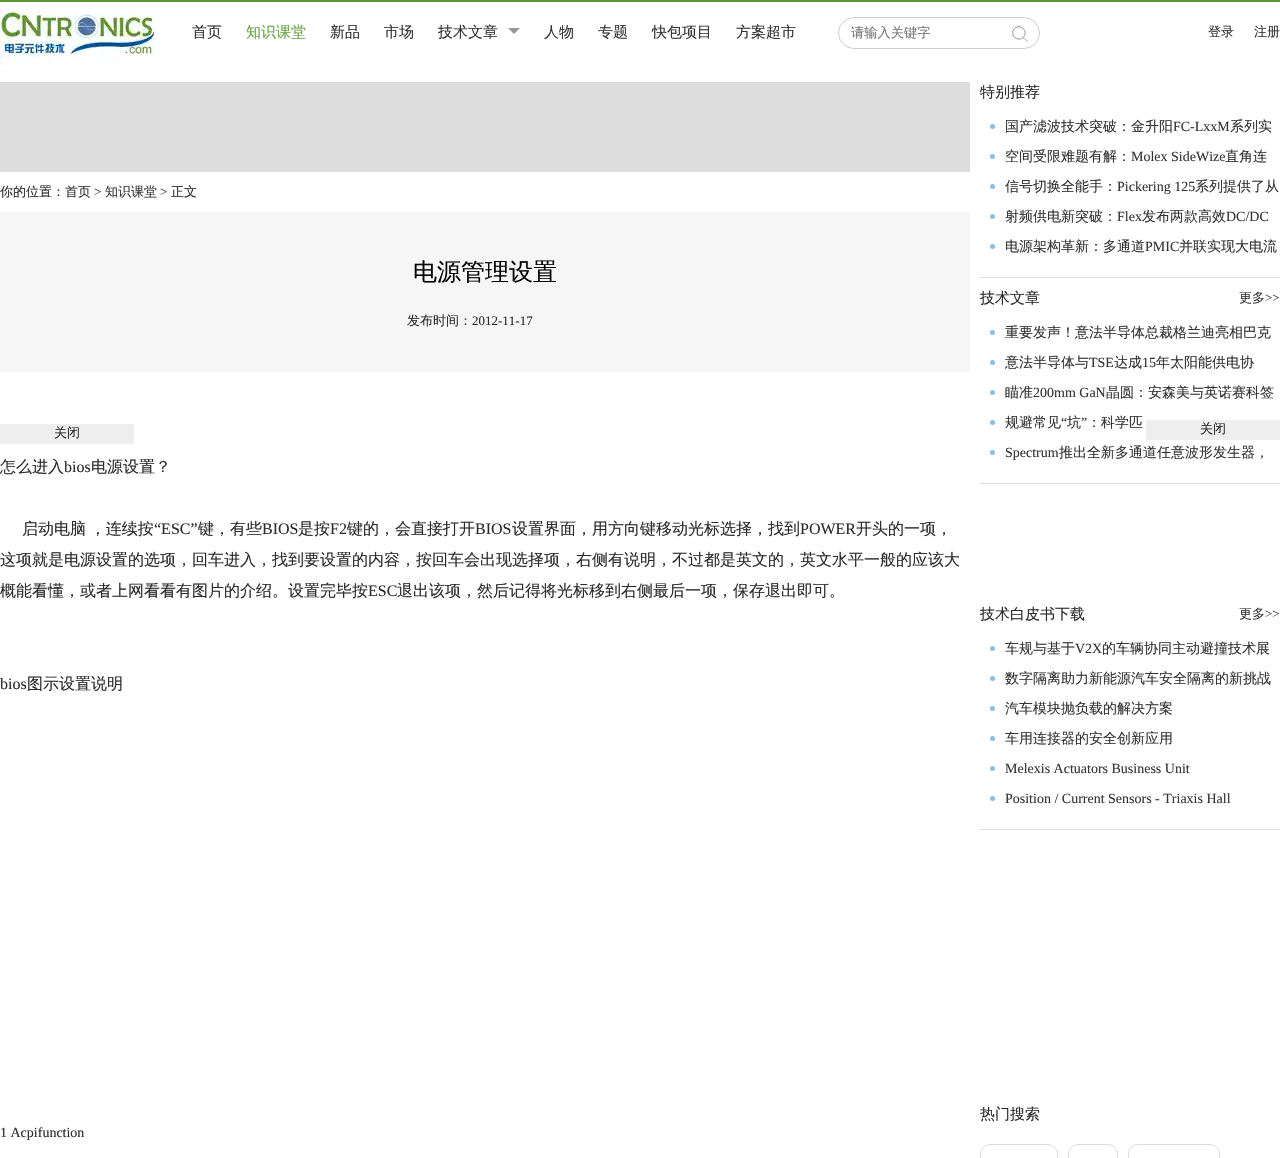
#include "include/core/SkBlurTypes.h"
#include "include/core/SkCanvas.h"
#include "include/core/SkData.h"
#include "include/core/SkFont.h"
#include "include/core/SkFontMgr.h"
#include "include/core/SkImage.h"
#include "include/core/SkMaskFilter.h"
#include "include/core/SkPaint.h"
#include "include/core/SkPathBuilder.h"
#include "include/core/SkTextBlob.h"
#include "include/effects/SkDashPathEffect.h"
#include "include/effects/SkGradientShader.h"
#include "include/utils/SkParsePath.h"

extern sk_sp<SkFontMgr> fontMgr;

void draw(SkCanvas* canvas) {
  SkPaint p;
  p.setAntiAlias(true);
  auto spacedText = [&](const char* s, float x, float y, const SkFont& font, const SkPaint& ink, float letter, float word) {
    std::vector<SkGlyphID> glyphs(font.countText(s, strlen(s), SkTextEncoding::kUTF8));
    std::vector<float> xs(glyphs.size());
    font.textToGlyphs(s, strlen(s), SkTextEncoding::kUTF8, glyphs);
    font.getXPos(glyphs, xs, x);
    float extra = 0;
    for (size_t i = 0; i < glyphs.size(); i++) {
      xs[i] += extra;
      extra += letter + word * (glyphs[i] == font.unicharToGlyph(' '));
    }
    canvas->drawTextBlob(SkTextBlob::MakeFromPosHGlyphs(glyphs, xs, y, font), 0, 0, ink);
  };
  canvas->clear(SK_ColorWHITE);
  p.setColor(SkColorSetRGB(91, 154, 50));
  canvas->drawRect(SkRect::MakeLTRB(0, 0, 1280, 2), p);
  canvas->drawImageRect(SkImages::DeferredFromEncodedData(SkData::MakeFromFileName("images/1.png")), SkRect::MakeLTRB(0, 8, 155, 66), SkSamplingOptions());
  p.setColor(SkColorSetRGB(153, 153, 153));
  canvas->drawPath(SkPathBuilder().moveTo(508, 28).lineTo(520, 28).lineTo(514, 34).close().detach(), p);
  p.setStyle(SkPaint::kStroke_Style);
  p.setStrokeWidth(1);
  p.setColor(SkColorSetRGB(204, 204, 204));
  canvas->drawRoundRect(SkRect::MakeLTRB(838.5f, 17.5f, 1039.5f, 48.5f), 15.5f, 15.5f, p);
  p.setStyle(SkPaint::kFill_Style);
  p.setColor(SK_ColorWHITE);
  canvas->drawRect(SkRect::MakeLTRB(851, 18, 853, 48), p);
  canvas->drawImageRect(SkImages::DeferredFromEncodedData(SkData::MakeFromFileName("images/2.png")), SkRect::MakeLTRB(1011, 24, 1028, 43), SkSamplingOptions());
  p.setColor(SkColorSetRGB(221, 221, 221));
  canvas->drawRect(SkRect::MakeLTRB(0, 82, 970, 172), p);
  p.setColor(SkColorSetRGB(246, 246, 246));
  canvas->drawRect(SkRect::MakeLTRB(0, 212, 970, 372), p);
  p.setColor(SkColorSetRGB(221, 221, 221));
  canvas->drawRect(SkRect::MakeLTRB(980, 277, 1280, 278), p);
  p.setColor(SkColorSetRGB(139, 190, 228));
  canvas->drawCircle(992.5f, 126.5f, 2.5f, p);
  canvas->drawCircle(992.5f, 156.5f, 2.5f, p);
  canvas->drawCircle(992.5f, 186.5f, 2.5f, p);
  canvas->drawCircle(992.5f, 216.5f, 2.5f, p);
  canvas->drawCircle(992.5f, 246.5f, 2.5f, p);
  p.setColor(SkColorSetRGB(221, 221, 221));
  canvas->drawRect(SkRect::MakeLTRB(980, 483, 1280, 484), p);
  p.setColor(SkColorSetRGB(139, 190, 228));
  canvas->drawCircle(992.5f, 332.5f, 2.5f, p);
  canvas->drawCircle(992.5f, 362.5f, 2.5f, p);
  canvas->drawCircle(992.5f, 392.5f, 2.5f, p);
  canvas->drawCircle(992.5f, 422.5f, 2.5f, p);
  canvas->drawCircle(992.5f, 452.5f, 2.5f, p);
  p.setColor(SkColorSetRGB(221, 221, 221));
  canvas->drawRect(SkRect::MakeLTRB(980, 829, 1280, 830), p);
  p.setColor(SkColorSetRGB(139, 190, 228));
  canvas->drawCircle(992.5f, 648.5f, 2.5f, p);
  canvas->drawCircle(992.5f, 678.5f, 2.5f, p);
  canvas->drawCircle(992.5f, 708.5f, 2.5f, p);
  canvas->drawCircle(992.5f, 738.5f, 2.5f, p);
  canvas->drawCircle(992.5f, 768.5f, 2.5f, p);
  canvas->drawCircle(992.5f, 798.5f, 2.5f, p);
  p.setStyle(SkPaint::kStroke_Style);
  p.setColor(SkColorSetRGB(221, 221, 221));
  canvas->drawRoundRect(SkRect::MakeLTRB(980.5f, 1144.5f, 1057.5f, 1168.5f), 9.5f, 9.5f, p);
  canvas->drawRoundRect(SkRect::MakeLTRB(1068.5f, 1144.5f, 1117.5f, 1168.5f), 9.5f, 9.5f, p);
  canvas->drawRoundRect(SkRect::MakeLTRB(1128.5f, 1144.5f, 1219.5f, 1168.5f), 9.5f, 9.5f, p);
  p.setStyle(SkPaint::kFill_Style);
  p.setColor(SkColorSetRGB(238, 238, 238));
  canvas->drawRect(SkRect::MakeLTRB(0, 424, 134, 444), p);
  canvas->drawRect(SkRect::MakeLTRB(1146, 420, 1280, 440), p);
  SkFont font1(fontMgr->matchFamilyStyle("WenQuanYi Zen Hei", SkFontStyle(500, SkFontStyle::kNormal_Width, SkFontStyle::kUpright_Slant)), 15);
  font1.setSubpixel(true);
  p.setColor(SkColorSetRGB(51, 51, 51));
  canvas->drawString("首页", 192, 37, font1, p);
  p.setColor(SkColorSetRGB(105, 161, 71));
  canvas->drawString("知识课堂", 246, 37, font1, p);
  p.setColor(SkColorSetRGB(51, 51, 51));
  canvas->drawString("新品", 330, 37, font1, p);
  canvas->drawString("市场", 384, 37, font1, p);
  canvas->drawString("技术文章", 438, 37, font1, p);
  canvas->drawString("人物", 544, 37, font1, p);
  canvas->drawString("专题", 598, 37, font1, p);
  canvas->drawString("快包项目", 652, 37, font1, p);
  canvas->drawString("方案超市", 736, 37, font1, p);
  SkFont font2(fontMgr->matchFamilyStyle("WenQuanYi Zen Hei", SkFontStyle(500, SkFontStyle::kNormal_Width, SkFontStyle::kUpright_Slant)), 13.25f);
  font2.setSubpixel(true);
  p.setColor(SkColorSetRGB(117, 117, 117));
  canvas->drawString("请输入关键字", 851, 37, font2, p);
  SkFont font3(fontMgr->matchFamilyStyle("WenQuanYi Zen Hei", SkFontStyle(500, SkFontStyle::kNormal_Width, SkFontStyle::kUpright_Slant)), 13);
  font3.setSubpixel(true);
  p.setColor(SkColorSetRGB(51, 51, 51));
  canvas->drawString("登录", 1208, 36, font3, p);
  canvas->drawString("注册", 1254, 36, font3, p);
  p.setColor(SkColorSetRGB(43, 43, 43));
  canvas->drawString("你的位置：", 0, 196, font3, p);
  p.setColor(SkColorSetRGB(51, 51, 51));
  canvas->drawString("首页", 65, 196, font3, p);
  SkFont font4(fontMgr->matchFamilyStyle("Liberation Serif", SkFontStyle::Normal()), 13);
  font4.setSubpixel(true);
  p.setColor(SkColorSetRGB(43, 43, 43));
  canvas->drawString(">", 94, 196, font4, p);
  p.setColor(SkColorSetRGB(51, 51, 51));
  canvas->drawString("知识课堂", 105, 196, font3, p);
  p.setColor(SkColorSetRGB(43, 43, 43));
  canvas->drawString(">", 160, 196, font4, p);
  canvas->drawString("正文", 171, 196, font3, p);
  SkFont font5(fontMgr->matchFamilyStyle("WenQuanYi Zen Hei", SkFontStyle(500, SkFontStyle::kNormal_Width, SkFontStyle::kUpright_Slant)), 24);
  font5.setSubpixel(true);
  p.setColor(SK_ColorBLACK);
  canvas->drawString("电源管理设置", 413, 280, font5, p);
  p.setColor(SkColorSetRGB(43, 43, 43));
  canvas->drawString("发布时间：", 407, 325, font3, p);
  canvas->drawString("2012-11-17", 472, 325, font4, p);
  SkFont font6(fontMgr->matchFamilyStyle("WenQuanYi Zen Hei", SkFontStyle(500, SkFontStyle::kNormal_Width, SkFontStyle::kUpright_Slant)), 16);
  font6.setSubpixel(true);
  canvas->drawString("怎么进入", 0, 472, font6, p);
  SkFont font7(fontMgr->matchFamilyStyle("Liberation Serif", SkFontStyle::Normal()), 16);
  font7.setSubpixel(true);
  canvas->drawString("bios", 64, 472, font7, p);
  canvas->drawString("电源设置？", 91, 472, font6, p);
  spacedText("启动电脑 ，连续按", 22, 534, font6, p, 0, -1);
  canvas->drawString("“ESC”", 154, 534, font7, p);
  canvas->drawString("键，有些", 198, 534, font6, p);
  canvas->drawString("BIOS", 262, 534, font7, p);
  canvas->drawString("是按", 298, 534, font6, p);
  canvas->drawString("F2", 330, 534, font7, p);
  canvas->drawString("键的，会直接打开", 347, 534, font6, p);
  canvas->drawString("BIOS", 475, 534, font7, p);
  canvas->drawString("设置界面，用方向键移动光标选择，找到", 512, 534, font6, p);
  canvas->drawString("POWER", 800, 534, font7, p);
  canvas->drawString("开头的一项，", 856, 534, font6, p);
  canvas->drawString("这项就是电源设置的选项，回车进入，找到要设置的内容，按回车会出现选择项，右侧有说明，不过都是英文的，英文水平一般的应该大", 0, 565, font6, p);
  canvas->drawString("概能看懂，或者上网看看有图片的介绍。设置完毕按", 0, 596, font6, p);
  canvas->drawString("ESC", 368, 596, font7, p);
  canvas->drawString("退出该项，然后记得将光标移到右侧最后一项，保存退出即可。", 397, 596, font6, p);
  canvas->drawString("bios", 0, 689, font7, p);
  canvas->drawString("图示设置说明", 27, 689, font6, p);
  SkFont font8(fontMgr->matchFamilyStyle("Liberation Serif", SkFontStyle::Normal()), 14);
  font8.setSubpixel(true);
  canvas->drawString("1 Acpifunction", 0, 1137, font8, p);
  canvas->drawString("特别推荐", 980, 97, font1, p);
  SkFont font9(fontMgr->matchFamilyStyle("WenQuanYi Zen Hei", SkFontStyle(500, SkFontStyle::kNormal_Width, SkFontStyle::kUpright_Slant)), 14);
  font9.setSubpixel(true);
  p.setColor(SkColorSetRGB(51, 51, 51));
  canvas->drawString("国产滤波技术突破：金升阳", 1005, 131, font9, p);
  canvas->drawString("FC-LxxM", 1173, 131, font8, p);
  canvas->drawString("系列实", 1230, 131, font9, p);
  canvas->drawString("空间受限难题有解：", 1005, 161, font9, p);
  canvas->drawString("Molex SideWize", 1131, 161, font8, p);
  canvas->drawString("直角连", 1225, 161, font9, p);
  canvas->drawString("信号切换全能手：", 1005, 191, font9, p);
  canvas->drawString("Pickering 125", 1117, 191, font8, p);
  canvas->drawString("系列提供了从", 1195, 191, font9, p);
  canvas->drawString("射频供电新突破：", 1005, 221, font9, p);
  canvas->drawString("Flex", 1117, 221, font8, p);
  canvas->drawString("发布两款高效", 1142, 221, font9, p);
  canvas->drawString("DC/DC", 1226, 221, font8, p);
  canvas->drawString("电源架构革新：多通道", 1005, 251, font9, p);
  canvas->drawString("PMIC", 1145, 251, font8, p);
  canvas->drawString("并联实现大电流", 1179, 251, font9, p);
  p.setColor(SkColorSetRGB(43, 43, 43));
  canvas->drawString("技术文章", 980, 303, font1, p);
  p.setColor(SkColorSetRGB(51, 51, 51));
  canvas->drawString("更多", 1239, 302, font3, p);
  canvas->drawString(">>", 1265, 302, font4, p);
  canvas->drawString("重要发声！意法半导体总裁格兰迪亮相巴克", 1005, 337, font9, p);
  canvas->drawString("意法半导体与", 1005, 367, font9, p);
  canvas->drawString("TSE", 1089, 367, font8, p);
  canvas->drawString("达成", 1114, 367, font9, p);
  canvas->drawString("15", 1142, 367, font8, p);
  canvas->drawString("年太阳能供电协", 1156, 367, font9, p);
  canvas->drawString("瞄准", 1005, 397, font9, p);
  canvas->drawString("200mm GaN", 1033, 397, font8, p);
  canvas->drawString("晶圆：安森美与英诺赛科签", 1106, 397, font9, p);
  canvas->drawString("规避常见", 1005, 427, font9, p);
  canvas->drawString("“", 1061, 427, font8, p);
  canvas->drawString("坑", 1067, 427, font9, p);
  canvas->drawString("”", 1081, 427, font8, p);
  canvas->drawString("：科学匹", 1087, 427, font9, p);
  canvas->drawString("Spectrum", 1005, 457, font8, p);
  canvas->drawString("推出全新多通道任意波形发生器，", 1059, 457, font9, p);
  p.setColor(SkColorSetRGB(43, 43, 43));
  canvas->drawString("技术白皮书下载", 980, 619, font1, p);
  p.setColor(SkColorSetRGB(51, 51, 51));
  canvas->drawString("更多", 1239, 618, font3, p);
  canvas->drawString(">>", 1265, 618, font4, p);
  canvas->drawString("车规与基于", 1005, 653, font9, p);
  canvas->drawString("V2X", 1075, 653, font8, p);
  canvas->drawString("的车辆协同主动避撞技术展", 1102, 653, font9, p);
  canvas->drawString("数字隔离助力新能源汽车安全隔离的新挑战", 1005, 683, font9, p);
  canvas->drawString("汽车模块抛负载的解决方案", 1005, 713, font9, p);
  canvas->drawString("车用连接器的安全创新应用", 1005, 743, font9, p);
  canvas->drawString("Melexis Actuators Business Unit", 1005, 773, font8, p);
  canvas->drawString("Position / Current Sensors - Triaxis Hall", 1005, 803, font8, p);
  p.setColor(SkColorSetRGB(43, 43, 43));
  canvas->drawString("热门搜索", 980, 1119, font1, p);
  canvas->drawString("关闭", 54, 437, font3, p);
  canvas->drawString("关闭", 1200, 433, font3, p);
}
